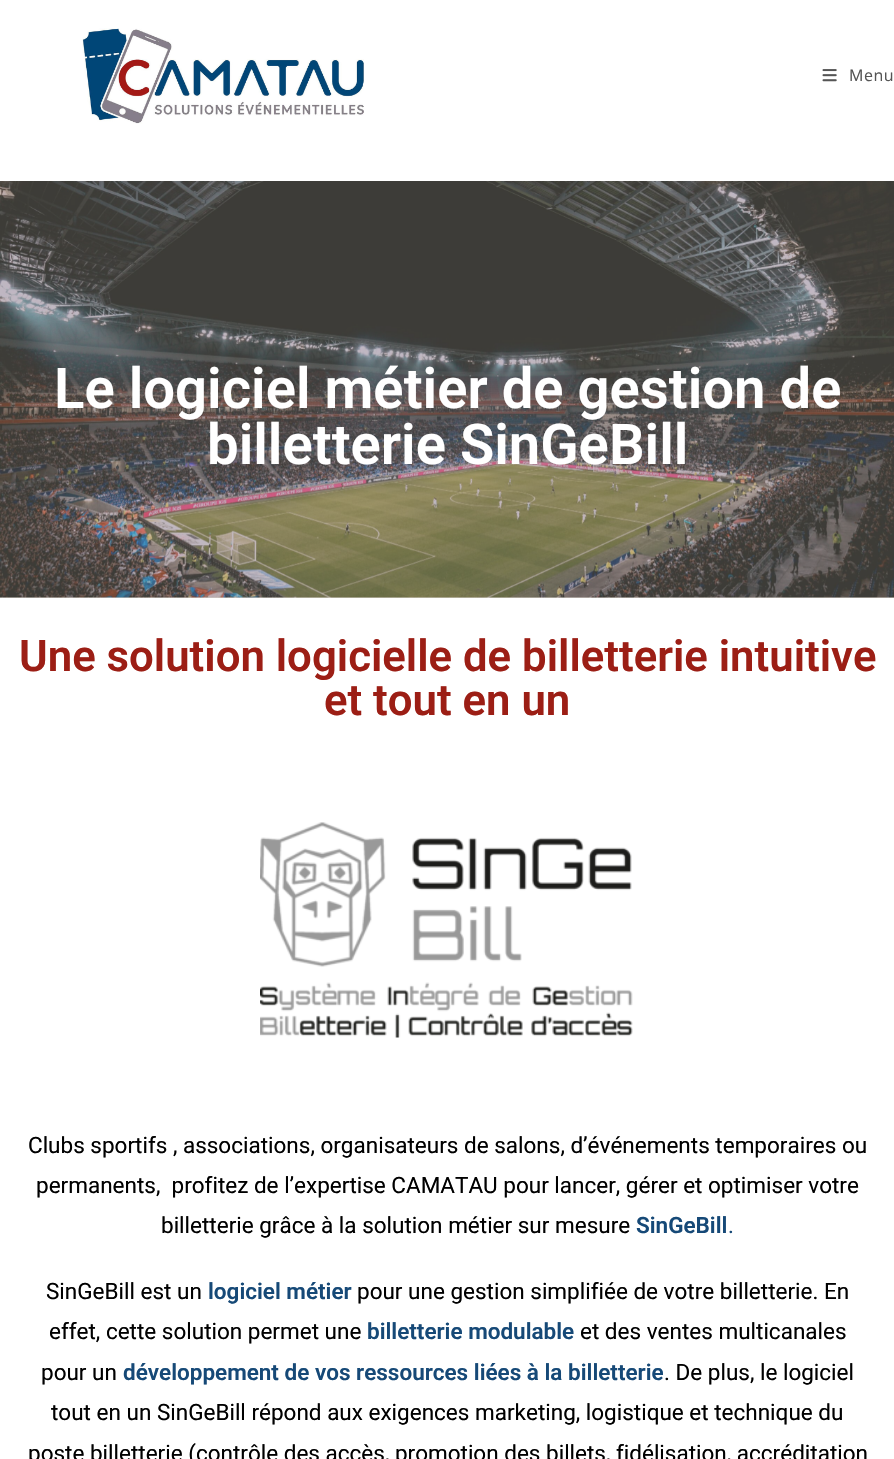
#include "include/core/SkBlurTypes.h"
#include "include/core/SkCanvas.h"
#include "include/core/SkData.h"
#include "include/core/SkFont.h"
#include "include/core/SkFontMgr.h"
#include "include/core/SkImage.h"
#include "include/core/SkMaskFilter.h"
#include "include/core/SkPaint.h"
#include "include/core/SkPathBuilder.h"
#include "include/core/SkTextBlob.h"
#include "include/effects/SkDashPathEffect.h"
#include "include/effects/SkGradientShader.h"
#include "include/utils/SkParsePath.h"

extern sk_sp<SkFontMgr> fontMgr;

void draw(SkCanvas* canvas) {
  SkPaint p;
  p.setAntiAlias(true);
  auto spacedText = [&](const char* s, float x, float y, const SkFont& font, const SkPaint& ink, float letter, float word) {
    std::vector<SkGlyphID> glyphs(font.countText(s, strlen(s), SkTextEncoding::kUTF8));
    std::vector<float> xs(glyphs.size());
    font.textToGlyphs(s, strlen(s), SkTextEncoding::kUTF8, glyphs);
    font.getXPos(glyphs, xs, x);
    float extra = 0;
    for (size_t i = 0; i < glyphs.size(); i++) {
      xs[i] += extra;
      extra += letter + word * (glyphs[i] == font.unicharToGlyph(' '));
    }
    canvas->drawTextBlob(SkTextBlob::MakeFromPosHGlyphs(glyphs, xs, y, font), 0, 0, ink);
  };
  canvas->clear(SK_ColorWHITE);
  p.setColor(SkColorSetRGB(208, 203, 196));
  canvas->drawRect(SkRect::MakeLTRB(0, 597, 894, 598), p);
  canvas->drawImageRect(SkImages::DeferredFromEncodedData(SkData::MakeFromFileName("images/1.png")), SkRect::MakeLTRB(82, 28, 364, 124), SkSamplingOptions());
  canvas->drawImageRect(SkImages::DeferredFromEncodedData(SkData::MakeFromFileName("images/2.png")), SkRect::MakeLTRB(822, 69, 837, 82), SkSamplingOptions());
  canvas->drawImageRect(SkImages::DeferredFromEncodedData(SkData::MakeFromFileName("images/3.png")), SkRect::MakeLTRB(0, 181, 894, 598), SkSamplingOptions());
  canvas->drawImageRect(SkImages::DeferredFromEncodedData(SkData::MakeFromFileName("images/4.png")), SkRect::MakeLTRB(260, 822, 633, 1038), SkSamplingOptions());
  SkFont font1(fontMgr->matchFamilyStyle("Open Sans", SkFontStyle::Normal()), 16);
  font1.setSubpixel(true);
  p.setColor(SkColorSetRGB(85, 85, 85));
  spacedText("Menu", 849, 81, font1, p, 0.5f, 0);
  SkFont font2(fontMgr->matchFamilyStyle("Roboto", SkFontStyle(600, SkFontStyle::kNormal_Width, SkFontStyle::kUpright_Slant)), 56.25f);
  font2.setSubpixel(true);
  p.setColor(SK_ColorWHITE);
  canvas->drawString("Le logiciel métier de gestion de", 54, 408, font2, p);
  canvas->drawString("billetterie SinGeBill", 207, 464, font2, p);
  SkFont font3(fontMgr->matchFamilyStyle("Roboto", SkFontStyle(600, SkFontStyle::kNormal_Width, SkFontStyle::kUpright_Slant)), 43.75f);
  font3.setSubpixel(true);
  p.setColor(SkColorSetRGB(156, 30, 21));
  canvas->drawString("Une solution logicielle de billetterie intuitive", 19, 671, font3, p);
  canvas->drawString("et tout en un", 324, 715, font3, p);
  SkFont font4(fontMgr->matchFamilyStyle("Roboto", SkFontStyle::Normal()), 22.5f);
  font4.setSubpixel(true);
  p.setColor(SK_ColorBLACK);
  canvas->drawString("Clubs sportifs , associations, organisateurs de salons, d’événements temporaires ou", 28, 1153, font4, p);
  canvas->drawString("permanents,  profitez de l’expertise CAMATAU pour lancer, gérer et optimiser votre", 36, 1193, font4, p);
  canvas->drawString("billetterie grâce à la solution métier sur mesure", 161, 1233, font4, p);
  SkFont font5(fontMgr->matchFamilyStyle("Roboto", SkFontStyle(600, SkFontStyle::kNormal_Width, SkFontStyle::kUpright_Slant)), 22.5f);
  font5.setSubpixel(true);
  p.setColor(SkColorSetRGB(22, 73, 119));
  canvas->drawString("SinGeBill", 636, 1233, font5, p);
  canvas->drawString(".", 728, 1233, font4, p);
  p.setColor(SK_ColorBLACK);
  canvas->drawString("SinGeBill est un", 46, 1299, font4, p);
  p.setColor(SkColorSetRGB(22, 73, 119));
  canvas->drawString("logiciel métier", 208, 1299, font5, p);
  p.setColor(SK_ColorBLACK);
  canvas->drawString("pour une gestion simplifiée de votre billetterie. En", 357, 1299, font4, p);
  canvas->drawString("effet, cette solution permet une", 49, 1339, font4, p);
  p.setColor(SkColorSetRGB(22, 73, 119));
  canvas->drawString("billetterie modulable", 367, 1339, font5, p);
  p.setColor(SK_ColorBLACK);
  canvas->drawString("et des ventes multicanales", 580, 1339, font4, p);
  canvas->drawString("pour un", 41, 1380, font4, p);
  p.setColor(SkColorSetRGB(22, 73, 119));
  canvas->drawString("développement de vos ressources liées à la billetterie", 123, 1380, font5, p);
  p.setColor(SK_ColorBLACK);
  canvas->drawString(". De plus, le logiciel", 664, 1380, font4, p);
  canvas->drawString("tout en un SinGeBill répond aux exigences marketing, logistique et technique du", 51, 1420, font4, p);
  canvas->drawString("poste billetterie (contrôle des accès, promotion des billets, fidélisation, accréditation", 28, 1461, font4, p);
}
